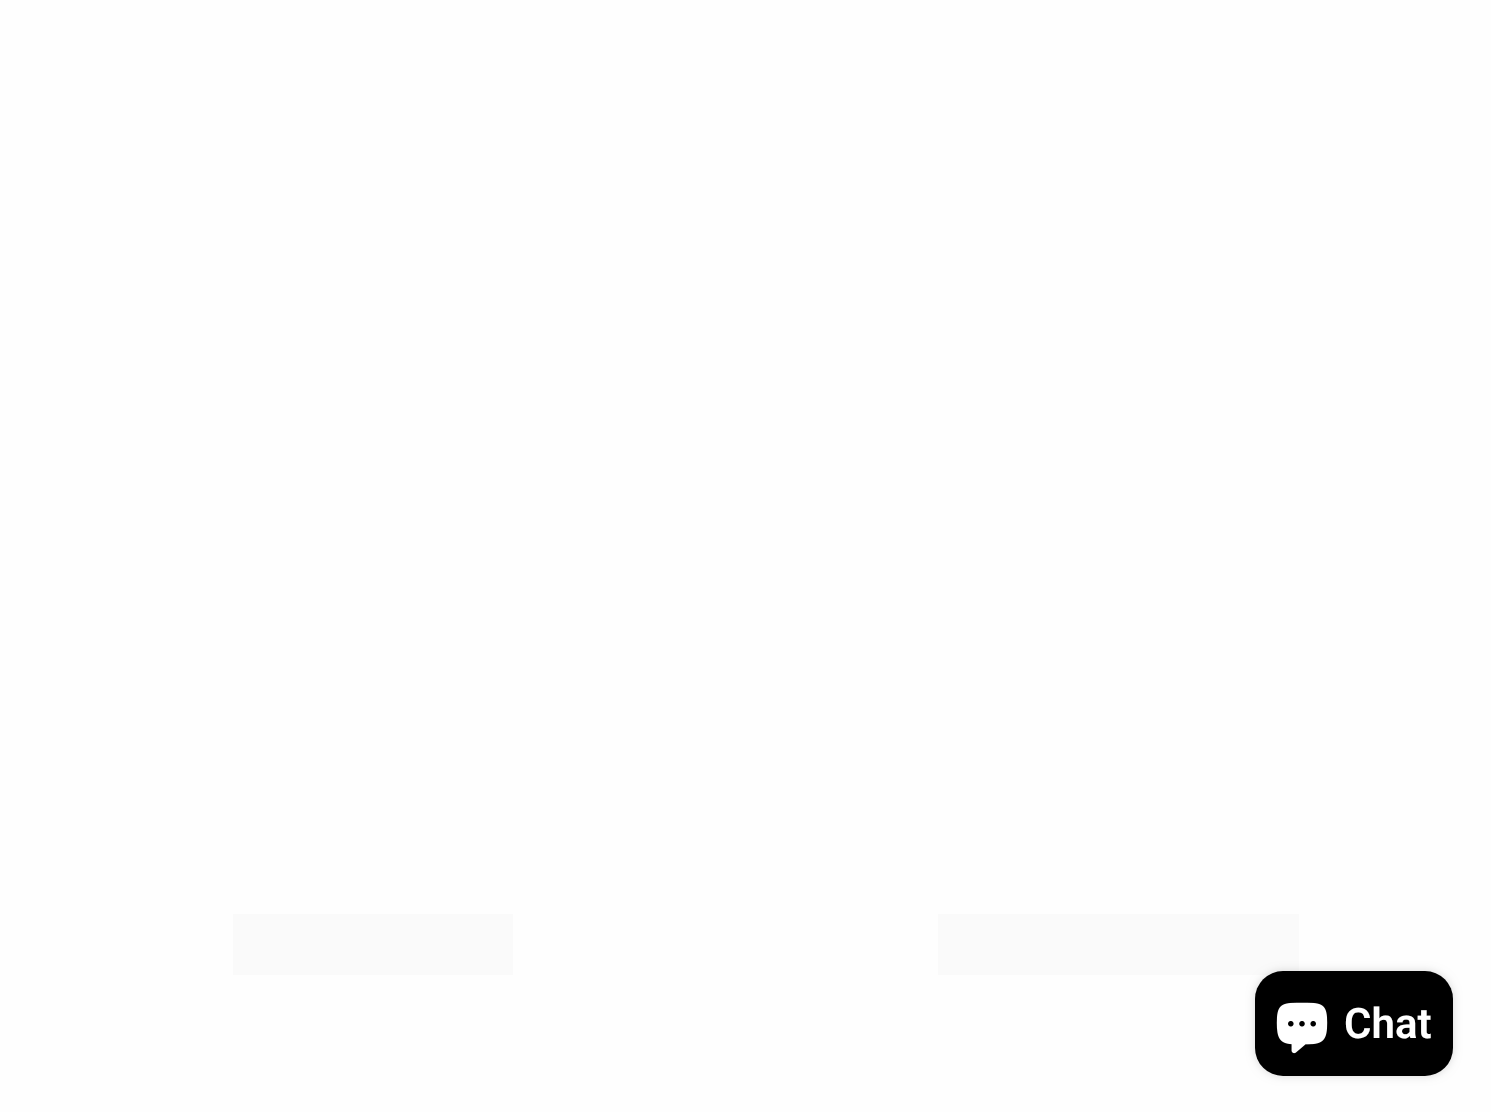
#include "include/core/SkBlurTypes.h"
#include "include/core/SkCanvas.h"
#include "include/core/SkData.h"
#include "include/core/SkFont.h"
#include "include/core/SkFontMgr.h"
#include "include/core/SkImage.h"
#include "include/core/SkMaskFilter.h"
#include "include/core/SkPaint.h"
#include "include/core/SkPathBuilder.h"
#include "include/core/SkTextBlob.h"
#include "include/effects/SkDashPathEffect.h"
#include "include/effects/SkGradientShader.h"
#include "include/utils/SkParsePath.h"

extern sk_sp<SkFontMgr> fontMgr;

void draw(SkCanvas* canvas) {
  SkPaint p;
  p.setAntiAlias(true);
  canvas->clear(SkColorSetRGB(254, 254, 254));
  p.setColor(SkColorSetRGB(250, 250, 250));
  canvas->drawRect(SkRect::MakeLTRB(233, 914, 513, 975), p);
  canvas->drawRect(SkRect::MakeLTRB(938, 914, 1299, 975), p);
  p.setColor(SkColorSetARGB(38, 0, 0, 0));
  p.setMaskFilter(SkMaskFilter::MakeBlur(kNormal_SkBlurStyle, 4.5f));
  canvas->drawRoundRect(SkRect::MakeLTRB(1255, 971, 1453, 1076), 28, 28, p);
  p.setMaskFilter(nullptr);
  p.setColor(SK_ColorBLACK);
  canvas->drawRoundRect(SkRect::MakeLTRB(1255, 971, 1453, 1076), 28, 28, p);
  canvas->drawImageRect(SkImages::DeferredFromEncodedData(SkData::MakeFromFileName("images/1.png")), SkRect::MakeLTRB(1276, 1002, 1328, 1054), SkSamplingOptions());
  SkFont font1(fontMgr->matchFamilyStyle("Roboto", SkFontStyle(600, SkFontStyle::kNormal_Width, SkFontStyle::kUpright_Slant)), 42);
  font1.setSubpixel(true);
  p.setColor(SK_ColorWHITE);
  canvas->drawString("Chat", 1344, 1038, font1, p);
}
